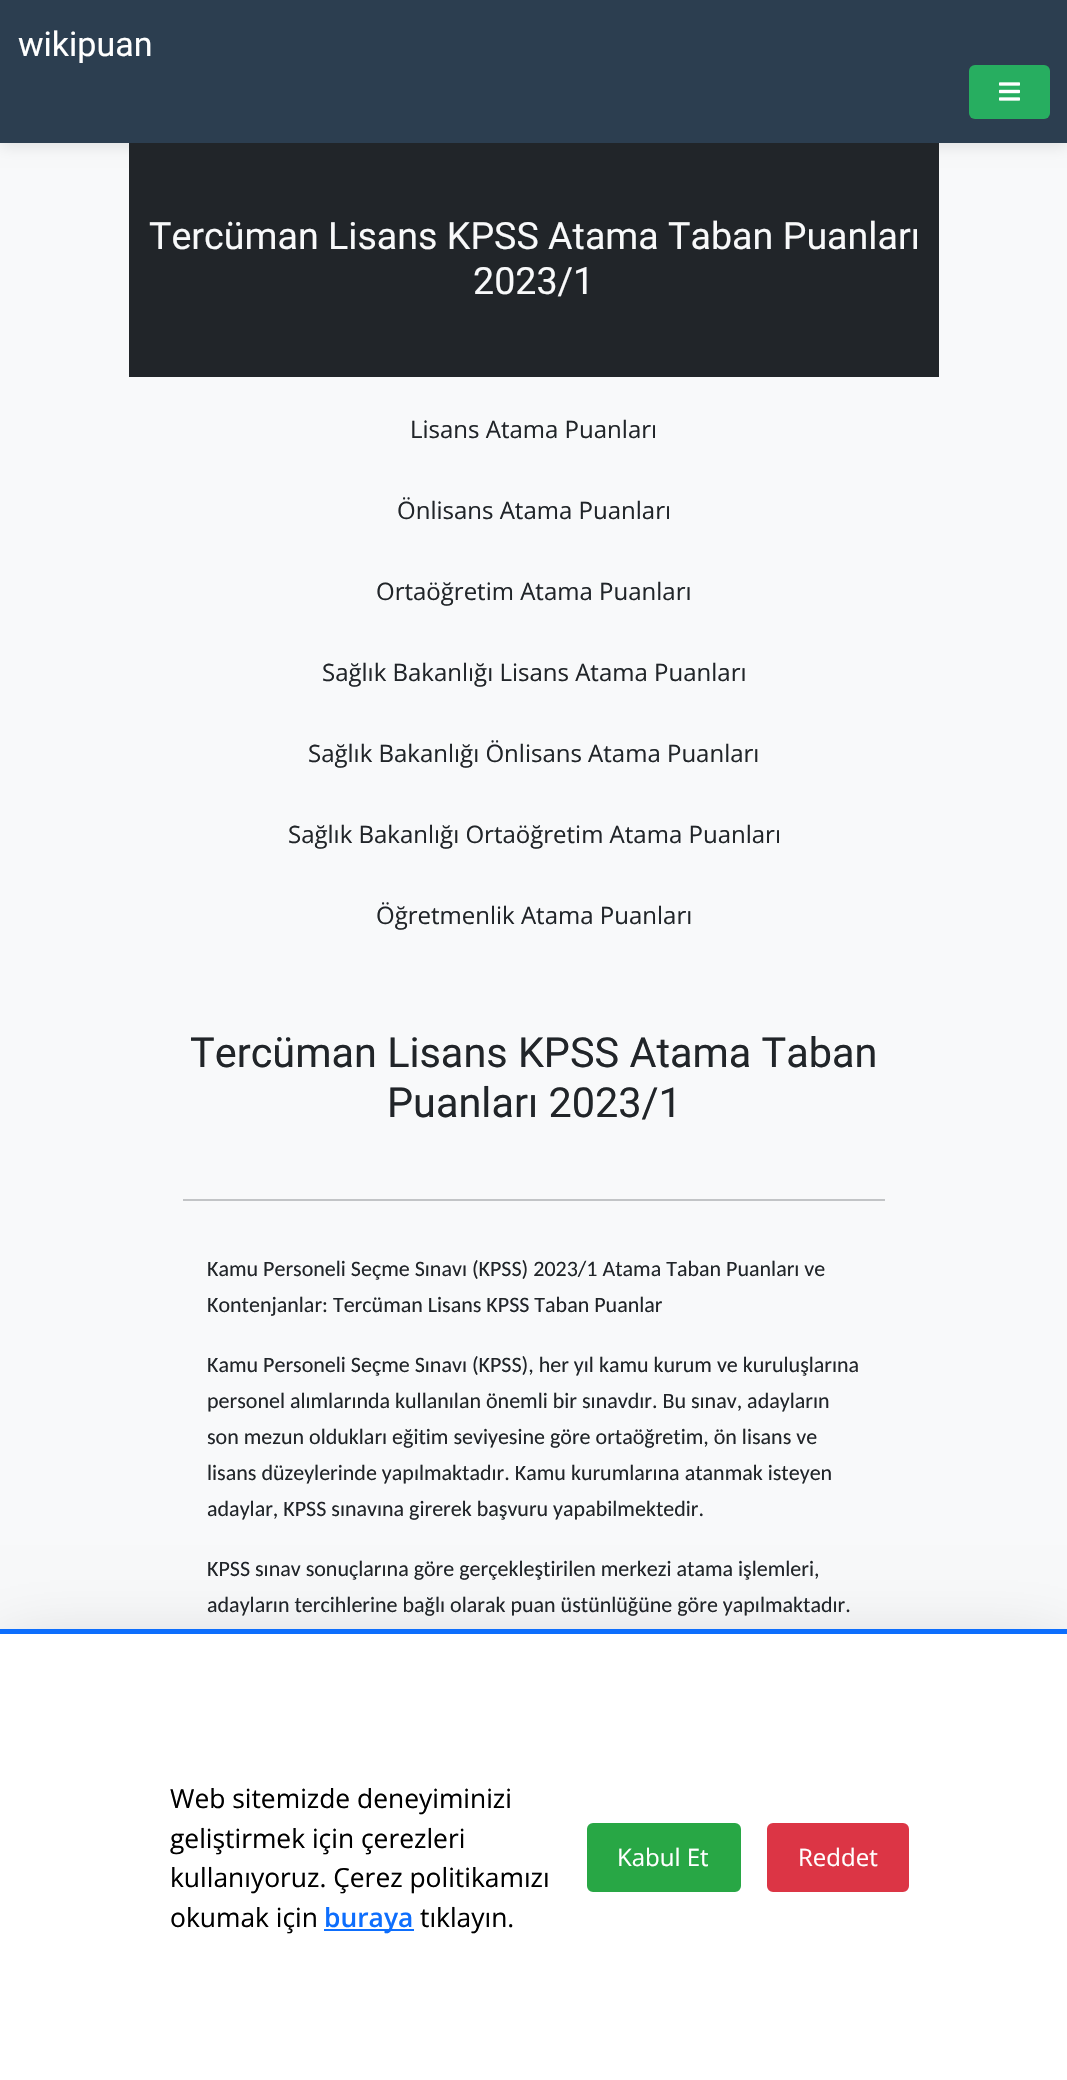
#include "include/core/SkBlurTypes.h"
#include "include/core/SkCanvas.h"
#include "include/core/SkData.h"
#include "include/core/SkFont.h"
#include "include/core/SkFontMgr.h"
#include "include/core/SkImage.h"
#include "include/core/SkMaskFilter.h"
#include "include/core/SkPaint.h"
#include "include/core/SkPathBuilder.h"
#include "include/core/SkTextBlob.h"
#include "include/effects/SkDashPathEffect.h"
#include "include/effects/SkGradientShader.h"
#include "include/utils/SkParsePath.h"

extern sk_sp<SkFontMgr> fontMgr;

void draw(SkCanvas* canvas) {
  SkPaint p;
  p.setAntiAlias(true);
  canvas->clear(SkColorSetRGB(248, 249, 250));
  p.setColor(SkColorSetARGB(26, 0, 0, 0));
  p.setMaskFilter(SkMaskFilter::MakeBlur(kNormal_SkBlurStyle, 7.5f));
  canvas->drawRect(SkRect::MakeLTRB(0, 3, 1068, 146), p);
  p.setMaskFilter(nullptr);
  p.setColor(SkColorSetRGB(44, 62, 80));
  canvas->drawRect(SkRect::MakeLTRB(0, 0, 1067, 143), p);
  p.setColor(SkColorSetRGB(39, 174, 96));
  canvas->drawRoundRect(SkRect::MakeLTRB(969, 65, 1050, 119), 6, 6, p);
  canvas->drawImageRect(SkImages::DeferredFromEncodedData(SkData::MakeFromFileName("images/1.png")), SkRect::MakeLTRB(999, 82, 1020, 101), SkSamplingOptions());
  p.setColor(SkColorSetRGB(33, 37, 41));
  canvas->drawRect(SkRect::MakeLTRB(129, 143, 939, 377), p);
  p.setColor(SkColorSetRGB(194, 196, 198));
  canvas->drawRect(SkRect::MakeLTRB(183, 1199, 885, 1201), p);
  p.setColor(SkColorSetARGB(46, 0, 0, 0));
  p.setMaskFilter(SkMaskFilter::MakeBlur(kNormal_SkBlurStyle, 36));
  canvas->drawRect(SkRect::MakeLTRB(0, 1653, 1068, 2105), p);
  p.setMaskFilter(nullptr);
  p.setColor(SK_ColorWHITE);
  canvas->drawRect(SkRect::MakeLTRB(0, 1634, 1067, 2080), p);
  p.setColor(SkColorSetRGB(13, 110, 253));
  canvas->drawRect(SkRect::MakeLTRB(0, 1629, 1067, 1634), p);
  canvas->drawRect(SkRect::MakeLTRB(324, 1929, 414, 1931), p);
  p.setColor(SkColorSetRGB(40, 167, 69));
  canvas->drawRoundRect(SkRect::MakeLTRB(588, 1824, 740, 1891), 5, 5, p);
  p.setStyle(SkPaint::kStroke_Style);
  p.setStrokeWidth(2);
  canvas->drawRoundRect(SkRect::MakeLTRB(588, 1824, 740, 1891), 5, 5, p);
  p.setStyle(SkPaint::kFill_Style);
  p.setColor(SkColorSetRGB(220, 53, 69));
  canvas->drawRoundRect(SkRect::MakeLTRB(768, 1824, 908, 1891), 5, 5, p);
  p.setStyle(SkPaint::kStroke_Style);
  canvas->drawRoundRect(SkRect::MakeLTRB(768, 1824, 908, 1891), 5, 5, p);
  SkFont font1(fontMgr->matchFamilyStyle("Roboto", SkFontStyle::Normal()), 34);
  font1.setSubpixel(true);
  p.setStyle(SkPaint::kFill_Style);
  p.setColor(SK_ColorWHITE);
  canvas->drawString("wikipuan", 18, 56, font1, p);
  SkFont font2(fontMgr->matchFamilyStyle("Roboto", SkFontStyle::Normal()), 37.6f);
  font2.setSubpixel(true);
  p.setColor(SkColorSetRGB(248, 249, 250));
  canvas->drawString("Tercüman Lisans KPSS Atama Taban Puanları", 149, 249, font2, p);
  canvas->drawString("2023/1", 473, 294, font2, p);
  SkFont font3(fontMgr->matchFamilyStyle("Open Sans", SkFontStyle::Normal()), 24);
  font3.setSubpixel(true);
  p.setColor(SkColorSetRGB(33, 37, 41));
  canvas->drawString("Lisans Atama Puanları", 410, 438, font3, p);
  canvas->drawString("Önlisans Atama Puanları", 397, 519, font3, p);
  canvas->drawString("Ortaöğretim Atama Puanları", 376, 600, font3, p);
  canvas->drawString("Sağlık Bakanlığı Lisans Atama Puanları", 322, 681, font3, p);
  canvas->drawString("Sağlık Bakanlığı Önlisans Atama Puanları", 308, 762, font3, p);
  canvas->drawString("Sağlık Bakanlığı Ortaöğretim Atama Puanları", 288, 843, font3, p);
  canvas->drawString("Öğretmenlik Atama Puanları", 376, 924, font3, p);
  SkFont font4(fontMgr->matchFamilyStyle("Roboto", SkFontStyle::Normal()), 41.4f);
  font4.setSubpixel(true);
  canvas->drawString("Tercüman Lisans KPSS Atama Taban", 190, 1067, font4, p);
  canvas->drawString("Puanları 2023/1", 387, 1117, font4, p);
  SkFont font5(fontMgr->matchFamilyStyle("Carlito", SkFontStyle::Normal()), 22);
  font5.setSubpixel(true);
  canvas->drawString("Kamu Personeli Seçme Sınavı (KPSS) 2023/1 Atama Taban Puanları ve", 207, 1276, font5, p);
  canvas->drawString("Kontenjanlar: Tercüman Lisans KPSS Taban Puanlar", 207, 1312, font5, p);
  canvas->drawString("Kamu Personeli Seçme Sınavı (KPSS), her yıl kamu kurum ve kuruluşlarına", 207, 1372, font5, p);
  canvas->drawString("personel alımlarında kullanılan önemli bir sınavdır. Bu sınav, adayların", 207, 1408, font5, p);
  canvas->drawString("son mezun oldukları eğitim seviyesine göre ortaöğretim, ön lisans ve", 207, 1444, font5, p);
  canvas->drawString("lisans düzeylerinde yapılmaktadır. Kamu kurumlarına atanmak isteyen", 207, 1480, font5, p);
  canvas->drawString("adaylar, KPSS sınavına girerek başvuru yapabilmektedir.", 207, 1516, font5, p);
  canvas->drawString("KPSS sınav sonuçlarına göre gerçekleştirilen merkezi atama işlemleri,", 207, 1576, font5, p);
  canvas->drawString("adayların tercihlerine bağlı olarak puan üstünlüğüne göre yapılmaktadır.", 207, 1612, font5, p);
  SkFont font6(fontMgr->matchFamilyStyle("Open Sans", SkFontStyle::Normal()), 26.4f);
  font6.setSubpixel(true);
  p.setColor(SK_ColorBLACK);
  canvas->drawString("Web sitemizde deneyiminizi", 170, 1808, font6, p);
  canvas->drawString("geliştirmek için çerezleri", 170, 1848, font6, p);
  canvas->drawString("kullanıyoruz. Çerez politikamızı", 170, 1887, font6, p);
  canvas->drawString("okumak için", 170, 1927, font6, p);
  SkFont font7(fontMgr->matchFamilyStyle("Open Sans", SkFontStyle(600, SkFontStyle::kNormal_Width, SkFontStyle::kUpright_Slant)), 26.4f);
  font7.setSubpixel(true);
  p.setColor(SkColorSetRGB(13, 110, 253));
  canvas->drawString("buraya", 324, 1927, font7, p);
  p.setColor(SK_ColorBLACK);
  canvas->drawString("tıklayın.", 420, 1927, font6, p);
  p.setColor(SK_ColorWHITE);
  canvas->drawString("Kabul Et", 617, 1866, font3, p);
  canvas->drawString("Reddet", 798, 1866, font3, p);
}
